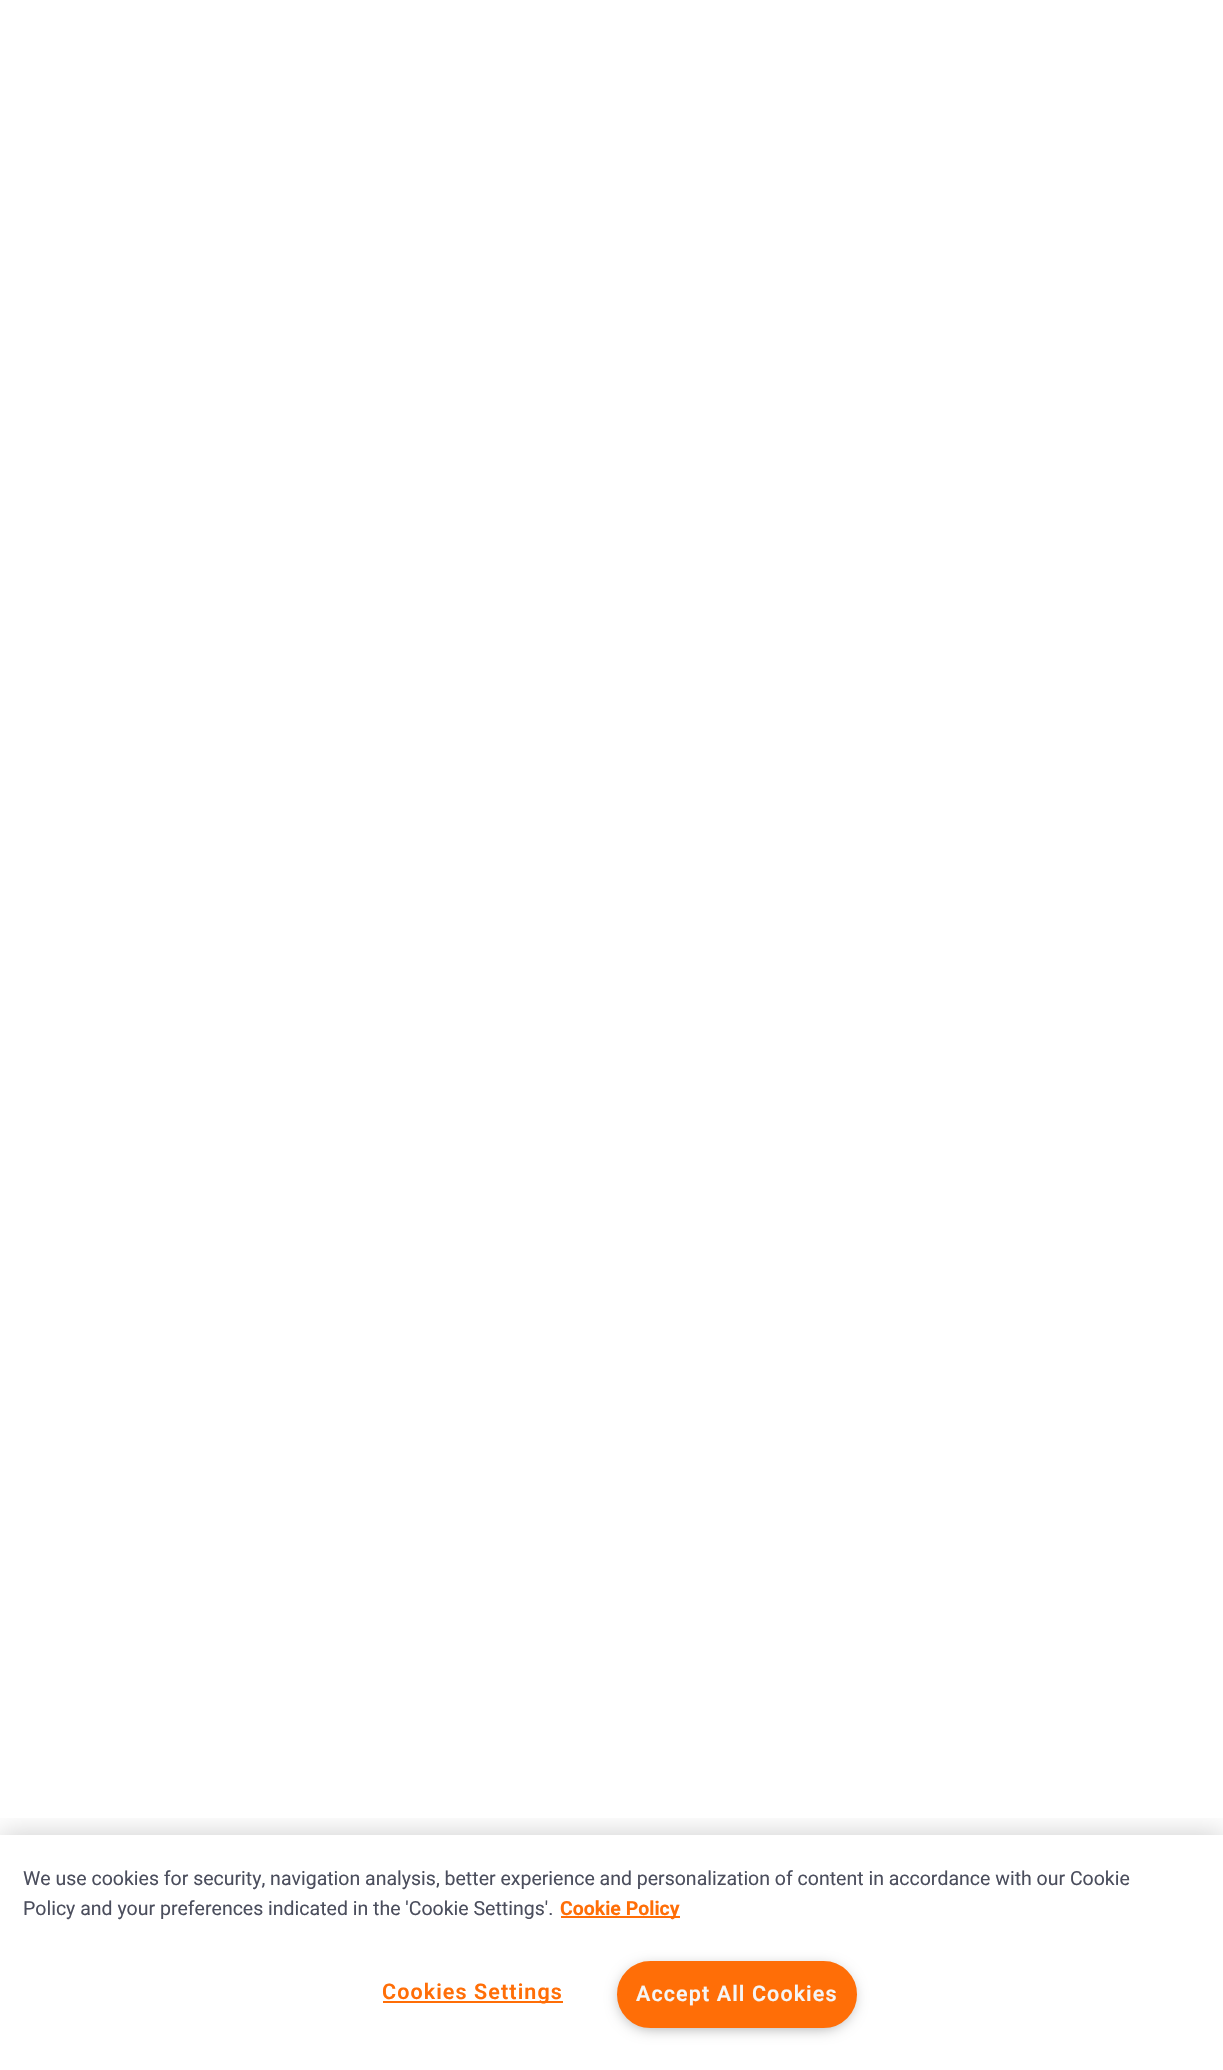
#include "include/core/SkBlurTypes.h"
#include "include/core/SkCanvas.h"
#include "include/core/SkData.h"
#include "include/core/SkFont.h"
#include "include/core/SkFontMgr.h"
#include "include/core/SkImage.h"
#include "include/core/SkMaskFilter.h"
#include "include/core/SkPaint.h"
#include "include/core/SkPathBuilder.h"
#include "include/core/SkTextBlob.h"
#include "include/effects/SkDashPathEffect.h"
#include "include/effects/SkGradientShader.h"
#include "include/utils/SkParsePath.h"

extern sk_sp<SkFontMgr> fontMgr;

void draw(SkCanvas* canvas) {
  SkPaint p;
  p.setAntiAlias(true);
  auto spacedText = [&](const char* s, float x, float y, const SkFont& font, const SkPaint& ink, float letter, float word) {
    std::vector<SkGlyphID> glyphs(font.countText(s, strlen(s), SkTextEncoding::kUTF8));
    std::vector<float> xs(glyphs.size());
    font.textToGlyphs(s, strlen(s), SkTextEncoding::kUTF8, glyphs);
    font.getXPos(glyphs, xs, x);
    float extra = 0;
    for (size_t i = 0; i < glyphs.size(); i++) {
      xs[i] += extra;
      extra += letter + word * (glyphs[i] == font.unicharToGlyph(' '));
    }
    canvas->drawTextBlob(SkTextBlob::MakeFromPosHGlyphs(glyphs, xs, y, font), 0, 0, ink);
  };
  canvas->clear(SK_ColorWHITE);
  canvas->save();
  canvas->clipRect(SkRect::MakeLTRB(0, 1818, 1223, 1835));
  p.setColor(SkColorSetARGB(51, 0, 0, 0));
  p.setMaskFilter(SkMaskFilter::MakeBlur(kNormal_SkBlurStyle, 13.5f));
  canvas->drawRect(SkRect::MakeLTRB(0, 1835, 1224, 2070), p);
  p.setMaskFilter(nullptr);
  canvas->restore();
  p.setColor(SkColorSetRGB(255, 110, 7));
  canvas->drawRect(SkRect::MakeLTRB(561, 1916, 680, 1918), p);
  canvas->drawRect(SkRect::MakeLTRB(383, 2001, 563, 2003), p);
  p.setColor(SkColorSetRGB(153, 153, 153));
  p.setMaskFilter(SkMaskFilter::MakeBlur(kNormal_SkBlurStyle, 7.5f));
  canvas->drawRoundRect(SkRect::MakeLTRB(621, 1968, 852, 2027), 29.5f, 29.5f, p);
  p.setMaskFilter(nullptr);
  p.setColor(SkColorSetRGB(255, 110, 7));
  canvas->drawRoundRect(SkRect::MakeLTRB(618, 1962, 856, 2027), 32.5f, 32.5f, p);
  p.setStyle(SkPaint::kStroke_Style);
  p.setStrokeWidth(2);
  canvas->drawRoundRect(SkRect::MakeLTRB(618, 1962, 856, 2027), 32.5f, 32.5f, p);
  SkFont font1(fontMgr->matchFamilyStyle("Roboto", SkFontStyle::Normal()), 19.5f);
  font1.setSubpixel(true);
  p.setStyle(SkPaint::kFill_Style);
  p.setColor(SkColorSetRGB(75, 78, 93));
  canvas->drawString("We use cookies for security, navigation analysis, better experience and personalization of content in accordance with our Cookie", 23, 1885, font1, p);
  canvas->drawString("Policy and your preferences indicated in the 'Cookie Settings'.", 23, 1915, font1, p);
  SkFont font2(fontMgr->matchFamilyStyle("Roboto", SkFontStyle::Bold()), 19.5f);
  font2.setSubpixel(true);
  p.setColor(SkColorSetRGB(255, 110, 7));
  canvas->drawString("Cookie Policy", 560, 1915, font2, p);
  SkFont font3(fontMgr->matchFamilyStyle("Roboto", SkFontStyle(600, SkFontStyle::kNormal_Width, SkFontStyle::kUpright_Slant)), 21.5f);
  font3.setSubpixel(true);
  spacedText("Cookies Settings", 382, 1999, font3, p, 1.1f, 0);
  p.setColor(SkColorSetRGB(245, 245, 245));
  spacedText("Accept All Cookies", 636, 2001, font3, p, 1.1f, 0);
}
